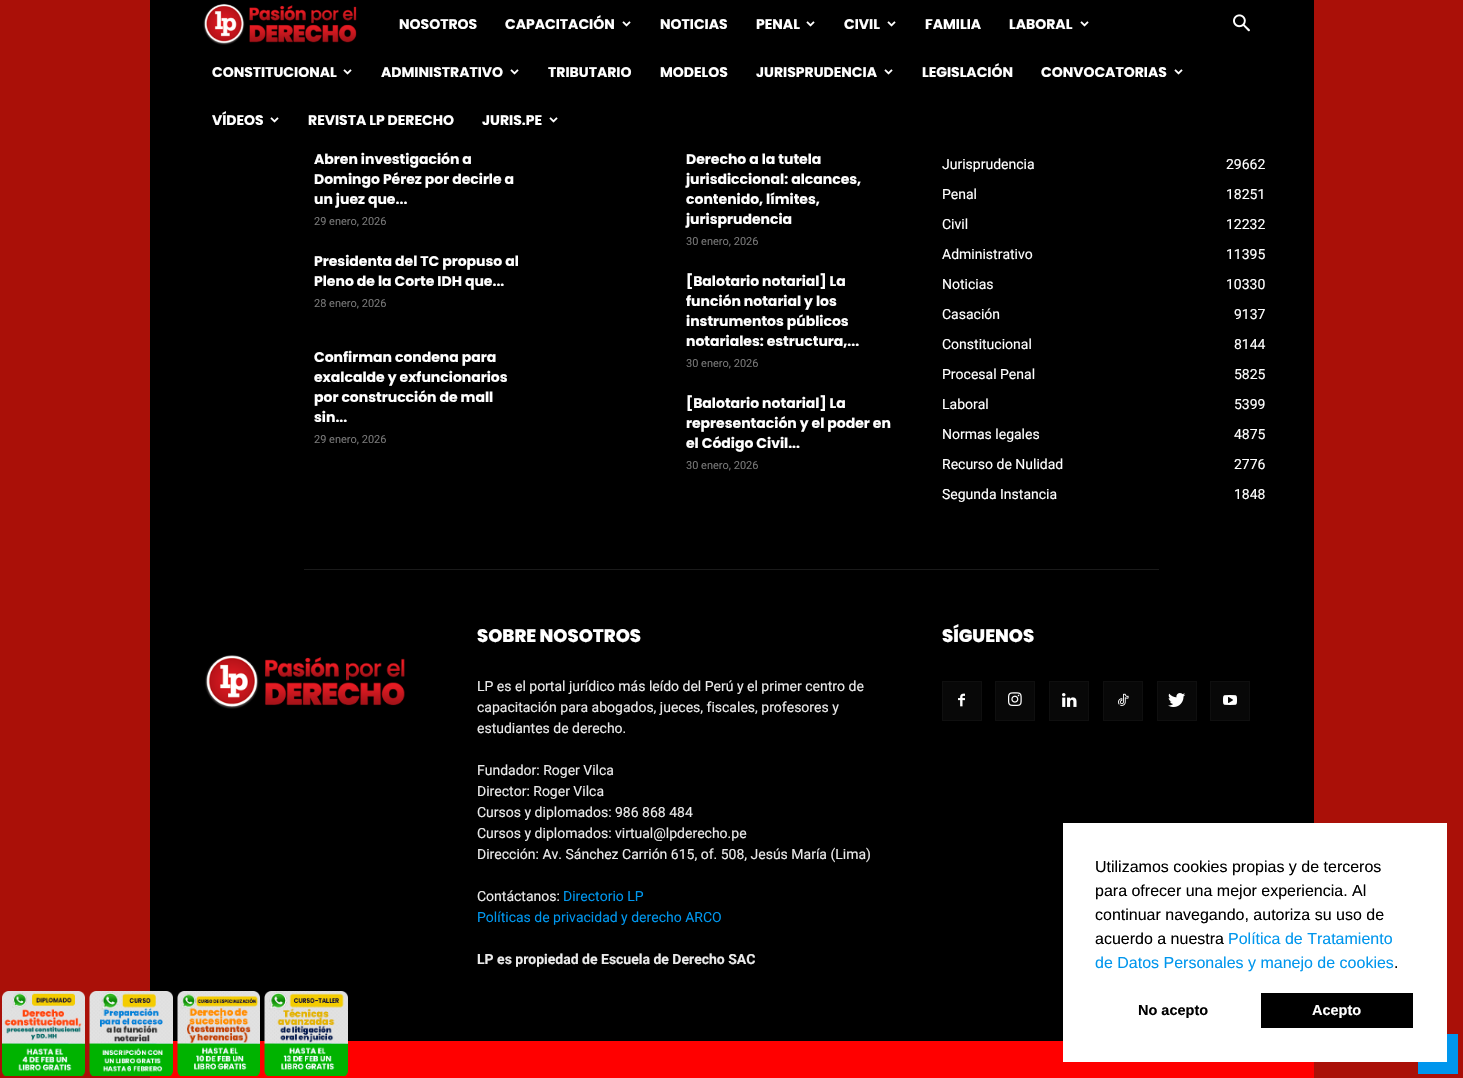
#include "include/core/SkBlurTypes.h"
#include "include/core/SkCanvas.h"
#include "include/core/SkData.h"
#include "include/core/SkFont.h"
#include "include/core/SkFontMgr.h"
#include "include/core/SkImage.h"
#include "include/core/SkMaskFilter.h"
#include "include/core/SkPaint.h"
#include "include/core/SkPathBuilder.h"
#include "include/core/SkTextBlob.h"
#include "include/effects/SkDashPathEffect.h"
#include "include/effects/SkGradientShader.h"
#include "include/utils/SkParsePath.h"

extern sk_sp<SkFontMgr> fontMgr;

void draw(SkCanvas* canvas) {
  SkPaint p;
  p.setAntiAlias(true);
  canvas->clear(SkColorSetRGB(170, 16, 8));
  p.setColor(SK_ColorBLACK);
  canvas->drawRect(SkRect::MakeLTRB(150, 0, 1314, 1041), p);
  canvas->drawImageRect(SkImages::DeferredFromEncodedData(SkData::MakeFromFileName("images/1.png")), SkRect::MakeLTRB(203, 3, 357, 45), SkSamplingOptions());
  canvas->drawImageRect(SkImages::DeferredFromEncodedData(SkData::MakeFromFileName("images/2.png")), SkRect::MakeLTRB(622, 21, 631, 27), SkSamplingOptions());
  canvas->drawImageRect(SkImages::DeferredFromEncodedData(SkData::MakeFromFileName("images/2.png")), SkRect::MakeLTRB(806, 21, 815, 27), SkSamplingOptions());
  canvas->drawImageRect(SkImages::DeferredFromEncodedData(SkData::MakeFromFileName("images/2.png")), SkRect::MakeLTRB(887, 21, 896, 27), SkSamplingOptions());
  canvas->drawImageRect(SkImages::DeferredFromEncodedData(SkData::MakeFromFileName("images/2.png")), SkRect::MakeLTRB(1080, 21, 1089, 27), SkSamplingOptions());
  canvas->drawImageRect(SkImages::DeferredFromEncodedData(SkData::MakeFromFileName("images/2.png")), SkRect::MakeLTRB(343, 69, 352, 75), SkSamplingOptions());
  canvas->drawImageRect(SkImages::DeferredFromEncodedData(SkData::MakeFromFileName("images/2.png")), SkRect::MakeLTRB(510, 69, 519, 75), SkSamplingOptions());
  canvas->drawImageRect(SkImages::DeferredFromEncodedData(SkData::MakeFromFileName("images/2.png")), SkRect::MakeLTRB(884, 69, 893, 75), SkSamplingOptions());
  canvas->drawImageRect(SkImages::DeferredFromEncodedData(SkData::MakeFromFileName("images/2.png")), SkRect::MakeLTRB(1174, 69, 1183, 75), SkSamplingOptions());
  canvas->drawImageRect(SkImages::DeferredFromEncodedData(SkData::MakeFromFileName("images/2.png")), SkRect::MakeLTRB(270, 117, 279, 123), SkSamplingOptions());
  canvas->drawImageRect(SkImages::DeferredFromEncodedData(SkData::MakeFromFileName("images/2.png")), SkRect::MakeLTRB(549, 117, 558, 123), SkSamplingOptions());
  canvas->drawImageRect(SkImages::DeferredFromEncodedData(SkData::MakeFromFileName("images/3.png")), SkRect::MakeLTRB(1233, 14, 1250, 32), SkSamplingOptions());
  p.setColor(SkColorSetRGB(26, 26, 26));
  canvas->drawRect(SkRect::MakeLTRB(304, 569, 1159, 570), p);
  canvas->drawImageRect(SkImages::DeferredFromEncodedData(SkData::MakeFromFileName("images/4.png")), SkRect::MakeLTRB(205, 655, 405, 709), SkSamplingOptions());
  p.setColor(SkColorSetRGB(8, 8, 8));
  canvas->drawRect(SkRect::MakeLTRB(943, 682, 981, 720), p);
  canvas->drawImageRect(SkImages::DeferredFromEncodedData(SkData::MakeFromFileName("images/5.png")), SkRect::MakeLTRB(958, 693, 965, 707), SkSamplingOptions());
  p.setStyle(SkPaint::kStroke_Style);
  p.setStrokeWidth(1);
  p.setColor(SkColorSetRGB(15, 15, 15));
  canvas->drawRect(SkRect::MakeLTRB(942.5f, 681.5f, 981.5f, 720.5f), p);
  p.setStyle(SkPaint::kFill_Style);
  p.setColor(SkColorSetRGB(8, 8, 8));
  canvas->drawRect(SkRect::MakeLTRB(996, 682, 1034, 720), p);
  canvas->drawImageRect(SkImages::DeferredFromEncodedData(SkData::MakeFromFileName("images/6.png")), SkRect::MakeLTRB(1008, 692, 1022, 706), SkSamplingOptions());
  p.setStyle(SkPaint::kStroke_Style);
  p.setColor(SkColorSetRGB(15, 15, 15));
  canvas->drawRect(SkRect::MakeLTRB(995.5f, 681.5f, 1034.5f, 720.5f), p);
  p.setStyle(SkPaint::kFill_Style);
  p.setColor(SkColorSetRGB(8, 8, 8));
  canvas->drawRect(SkRect::MakeLTRB(1050, 682, 1088, 720), p);
  canvas->drawImageRect(SkImages::DeferredFromEncodedData(SkData::MakeFromFileName("images/7.png")), SkRect::MakeLTRB(1062, 693, 1077, 707), SkSamplingOptions());
  p.setStyle(SkPaint::kStroke_Style);
  p.setColor(SkColorSetRGB(15, 15, 15));
  canvas->drawRect(SkRect::MakeLTRB(1049.5f, 681.5f, 1088.5f, 720.5f), p);
  p.setStyle(SkPaint::kFill_Style);
  p.setColor(SkColorSetRGB(8, 8, 8));
  canvas->drawRect(SkRect::MakeLTRB(1104, 682, 1142, 720), p);
  canvas->drawImageRect(SkImages::DeferredFromEncodedData(SkData::MakeFromFileName("images/8.png")), SkRect::MakeLTRB(1118, 693, 1129, 706), SkSamplingOptions());
  p.setStyle(SkPaint::kStroke_Style);
  p.setColor(SkColorSetRGB(15, 15, 15));
  canvas->drawRect(SkRect::MakeLTRB(1103.5f, 681.5f, 1142.5f, 720.5f), p);
  p.setStyle(SkPaint::kFill_Style);
  p.setColor(SkColorSetRGB(8, 8, 8));
  canvas->drawRect(SkRect::MakeLTRB(1158, 682, 1196, 720), p);
  canvas->drawImageRect(SkImages::DeferredFromEncodedData(SkData::MakeFromFileName("images/9.png")), SkRect::MakeLTRB(1168, 693, 1186, 707), SkSamplingOptions());
  p.setStyle(SkPaint::kStroke_Style);
  p.setColor(SkColorSetRGB(15, 15, 15));
  canvas->drawRect(SkRect::MakeLTRB(1157.5f, 681.5f, 1196.5f, 720.5f), p);
  p.setStyle(SkPaint::kFill_Style);
  p.setColor(SkColorSetRGB(8, 8, 8));
  canvas->drawRect(SkRect::MakeLTRB(1211, 682, 1249, 720), p);
  canvas->drawImageRect(SkImages::DeferredFromEncodedData(SkData::MakeFromFileName("images/10.png")), SkRect::MakeLTRB(1223, 695, 1237, 705), SkSamplingOptions());
  p.setStyle(SkPaint::kStroke_Style);
  p.setColor(SkColorSetRGB(15, 15, 15));
  canvas->drawRect(SkRect::MakeLTRB(1210.5f, 681.5f, 1249.5f, 720.5f), p);
  p.setStyle(SkPaint::kFill_Style);
  p.setColor(SkColorSetRGB(255, 0, 0));
  canvas->drawRect(SkRect::MakeLTRB(150, 1041, 1314, 1078), p);
  p.setColor(SkColorSetRGB(0, 150, 237));
  canvas->drawRect(SkRect::MakeLTRB(1418, 1034, 1458, 1074), p);
  p.setColor(SK_ColorWHITE);
  canvas->drawRect(SkRect::MakeLTRB(1063, 823, 1447, 1062), p);
  p.setColor(SK_ColorBLACK);
  canvas->drawRect(SkRect::MakeLTRB(1261, 993, 1413, 1028), p);
  canvas->drawImageRect(SkImages::DeferredFromEncodedData(SkData::MakeFromFileName("images/11.png")), SkRect::MakeLTRB(2, 991, 85, 1076), SkSamplingOptions());
  canvas->drawImageRect(SkImages::DeferredFromEncodedData(SkData::MakeFromFileName("images/12.png")), SkRect::MakeLTRB(89, 991, 173, 1076), SkSamplingOptions());
  canvas->drawImageRect(SkImages::DeferredFromEncodedData(SkData::MakeFromFileName("images/13.png")), SkRect::MakeLTRB(177, 991, 260, 1076), SkSamplingOptions());
  canvas->drawImageRect(SkImages::DeferredFromEncodedData(SkData::MakeFromFileName("images/14.png")), SkRect::MakeLTRB(264, 991, 348, 1076), SkSamplingOptions());
  SkFont font1(fontMgr->matchFamilyStyle("Poppins", SkFontStyle::Bold()), 14);
  font1.setSubpixel(true);
  p.setColor(SK_ColorWHITE);
  canvas->drawString("NOSOTROS", 399, 29, font1, p);
  canvas->drawString("CAPACITACIÓN", 505, 29, font1, p);
  canvas->drawString("NOTICIAS", 660, 29, font1, p);
  canvas->drawString("PENAL", 756, 29, font1, p);
  canvas->drawString("CIVIL", 844, 29, font1, p);
  canvas->drawString("FAMILIA", 925, 29, font1, p);
  canvas->drawString("LABORAL", 1009, 29, font1, p);
  canvas->drawString("CONSTITUCIONAL", 212, 77, font1, p);
  canvas->drawString("ADMINISTRATIVO", 381, 77, font1, p);
  canvas->drawString("TRIBUTARIO", 548, 77, font1, p);
  canvas->drawString("MODELOS", 660, 77, font1, p);
  canvas->drawString("JURISPRUDENCIA", 756, 77, font1, p);
  canvas->drawString("LEGISLACIÓN", 922, 77, font1, p);
  canvas->drawString("CONVOCATORIAS", 1041, 77, font1, p);
  canvas->drawString("VÍDEOS", 212, 125, font1, p);
  canvas->drawString("REVISTA LP DERECHO", 308, 125, font1, p);
  canvas->drawString("JURIS.PE", 482, 125, font1, p);
  canvas->drawString("Abren investigación a", 314, 164, font1, p);
  canvas->drawString("Domingo Pérez por decirle a", 314, 184, font1, p);
  canvas->drawString("un juez que...", 314, 204, font1, p);
  SkFont font2(fontMgr->matchFamilyStyle("Roboto", SkFontStyle::Normal()), 11);
  font2.setSubpixel(true);
  p.setColor(SkColorSetRGB(118, 118, 118));
  canvas->drawString("29 enero, 2026", 314, 225, font2, p);
  p.setColor(SK_ColorWHITE);
  canvas->drawString("Presidenta del TC propuso al", 314, 266, font1, p);
  canvas->drawString("Pleno de la Corte IDH que...", 314, 286, font1, p);
  p.setColor(SkColorSetRGB(118, 118, 118));
  canvas->drawString("28 enero, 2026", 314, 307, font2, p);
  p.setColor(SK_ColorWHITE);
  canvas->drawString("Confirman condena para", 314, 362, font1, p);
  canvas->drawString("exalcalde y exfuncionarios", 314, 382, font1, p);
  canvas->drawString("por construcción de mall", 314, 402, font1, p);
  canvas->drawString("sin...", 314, 422, font1, p);
  p.setColor(SkColorSetRGB(118, 118, 118));
  canvas->drawString("29 enero, 2026", 314, 443, font2, p);
  p.setColor(SK_ColorWHITE);
  canvas->drawString("Derecho a la tutela", 686, 164, font1, p);
  canvas->drawString("jurisdiccional: alcances,", 686, 184, font1, p);
  canvas->drawString("contenido, límites,", 686, 204, font1, p);
  canvas->drawString("jurisprudencia", 686, 224, font1, p);
  p.setColor(SkColorSetRGB(118, 118, 118));
  canvas->drawString("30 enero, 2026", 686, 245, font2, p);
  p.setColor(SK_ColorWHITE);
  canvas->drawString("[Balotario notarial] La", 686, 286, font1, p);
  canvas->drawString("función notarial y los", 686, 306, font1, p);
  canvas->drawString("instrumentos públicos", 686, 326, font1, p);
  canvas->drawString("notariales: estructura,...", 686, 346, font1, p);
  p.setColor(SkColorSetRGB(118, 118, 118));
  canvas->drawString("30 enero, 2026", 686, 367, font2, p);
  p.setColor(SK_ColorWHITE);
  canvas->drawString("[Balotario notarial] La", 686, 408, font1, p);
  canvas->drawString("representación y el poder en", 686, 428, font1, p);
  canvas->drawString("el Código Civil...", 686, 448, font1, p);
  p.setColor(SkColorSetRGB(118, 118, 118));
  canvas->drawString("30 enero, 2026", 686, 469, font2, p);
  SkFont font3(fontMgr->matchFamilyStyle("Roboto", SkFontStyle::Normal()), 14);
  font3.setSubpixel(true);
  p.setColor(SK_ColorWHITE);
  canvas->drawString("Jurisprudencia", 942, 169, font3, p);
  canvas->drawString("29662", 1226, 169, font3, p);
  canvas->drawString("Penal", 942, 199, font3, p);
  canvas->drawString("18251", 1226, 199, font3, p);
  canvas->drawString("Civil", 942, 229, font3, p);
  canvas->drawString("12232", 1226, 229, font3, p);
  canvas->drawString("Administrativo", 942, 259, font3, p);
  canvas->drawString("11395", 1226, 259, font3, p);
  canvas->drawString("Noticias", 942, 289, font3, p);
  canvas->drawString("10330", 1226, 289, font3, p);
  canvas->drawString("Casación", 942, 319, font3, p);
  canvas->drawString("9137", 1234, 319, font3, p);
  canvas->drawString("Constitucional", 942, 349, font3, p);
  canvas->drawString("8144", 1234, 349, font3, p);
  canvas->drawString("Procesal Penal", 942, 379, font3, p);
  canvas->drawString("5825", 1234, 379, font3, p);
  canvas->drawString("Laboral", 942, 409, font3, p);
  canvas->drawString("5399", 1234, 409, font3, p);
  canvas->drawString("Normas legales", 942, 439, font3, p);
  canvas->drawString("4875", 1234, 439, font3, p);
  canvas->drawString("Recurso de Nulidad", 942, 469, font3, p);
  canvas->drawString("2776", 1234, 469, font3, p);
  canvas->drawString("Segunda Instancia", 942, 499, font3, p);
  canvas->drawString("1848", 1234, 499, font3, p);
  SkFont font4(fontMgr->matchFamilyStyle("Poppins", SkFontStyle(800, SkFontStyle::kNormal_Width, SkFontStyle::kUpright_Slant)), 18);
  font4.setSubpixel(true);
  canvas->drawString("SOBRE NOSOTROS", 477, 642, font4, p);
  p.setColor(SkColorSetRGB(234, 234, 234));
  canvas->drawString("LP es el portal jurídico más leído del Perú y el primer centro de", 477, 691, font3, p);
  canvas->drawString("capacitación para abogados, jueces, fiscales, profesores y", 477, 712, font3, p);
  canvas->drawString("estudiantes de derecho.", 477, 733, font3, p);
  canvas->drawString("Fundador: Roger Vilca", 477, 775, font3, p);
  canvas->drawString("Director: Roger Vilca", 477, 796, font3, p);
  canvas->drawString("Cursos y diplomados: 986 868 484", 477, 817, font3, p);
  canvas->drawString("Cursos y diplomados: virtual@lpderecho.pe", 477, 838, font3, p);
  canvas->drawString("Dirección: Av. Sánchez Carrión 615, of. 508, Jesús María (Lima)", 477, 859, font3, p);
  canvas->drawString("Contáctanos:", 477, 901, font3, p);
  p.setColor(SkColorSetRGB(0, 150, 237));
  canvas->drawString("Directorio LP", 563, 901, font3, p);
  canvas->drawString("Políticas de privacidad y derecho ARCO", 477, 922, font3, p);
  SkFont font5(fontMgr->matchFamilyStyle("Roboto", SkFontStyle::Bold()), 14);
  font5.setSubpixel(true);
  p.setColor(SkColorSetRGB(234, 234, 234));
  canvas->drawString("LP es propiedad de Escuela de Derecho SAC", 477, 964, font5, p);
  p.setColor(SK_ColorWHITE);
  canvas->drawString("SÍGUENOS", 942, 642, font4, p);
  SkFont font6(fontMgr->matchFamilyStyle("Liberation Sans", SkFontStyle::Normal()), 16);
  font6.setSubpixel(true);
  p.setColor(SK_ColorBLACK);
  canvas->drawString("Utilizamos cookies propias y de terceros", 1095, 872, font6, p);
  canvas->drawString("para ofrecer una mejor experiencia. Al", 1095, 896, font6, p);
  canvas->drawString("continuar navegando, autoriza su uso de", 1095, 920, font6, p);
  canvas->drawString("acuerdo a nuestra", 1095, 944, font6, p);
  p.setColor(SkColorSetRGB(0, 150, 237));
  canvas->drawString("Política de Tratamiento", 1228, 944, font6, p);
  canvas->drawString("de Datos Personales y manejo de cookies", 1095, 968, font6, p);
  p.setColor(SK_ColorBLACK);
  canvas->drawString(".", 1394, 968, font6, p);
  SkFont font7(fontMgr->matchFamilyStyle("Liberation Sans", SkFontStyle::Bold()), 14.5f);
  font7.setSubpixel(true);
  canvas->drawString("No acepto", 1138, 1015, font7, p);
  p.setColor(SK_ColorWHITE);
  canvas->drawString("Acepto", 1312, 1015, font7, p);
}
